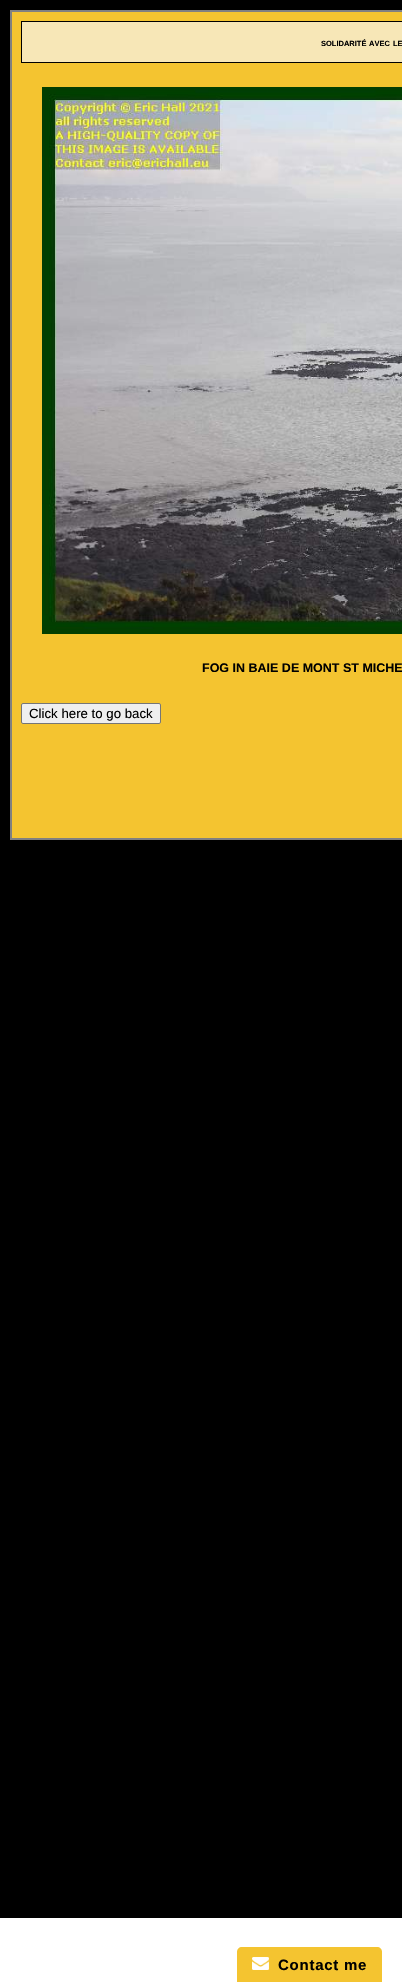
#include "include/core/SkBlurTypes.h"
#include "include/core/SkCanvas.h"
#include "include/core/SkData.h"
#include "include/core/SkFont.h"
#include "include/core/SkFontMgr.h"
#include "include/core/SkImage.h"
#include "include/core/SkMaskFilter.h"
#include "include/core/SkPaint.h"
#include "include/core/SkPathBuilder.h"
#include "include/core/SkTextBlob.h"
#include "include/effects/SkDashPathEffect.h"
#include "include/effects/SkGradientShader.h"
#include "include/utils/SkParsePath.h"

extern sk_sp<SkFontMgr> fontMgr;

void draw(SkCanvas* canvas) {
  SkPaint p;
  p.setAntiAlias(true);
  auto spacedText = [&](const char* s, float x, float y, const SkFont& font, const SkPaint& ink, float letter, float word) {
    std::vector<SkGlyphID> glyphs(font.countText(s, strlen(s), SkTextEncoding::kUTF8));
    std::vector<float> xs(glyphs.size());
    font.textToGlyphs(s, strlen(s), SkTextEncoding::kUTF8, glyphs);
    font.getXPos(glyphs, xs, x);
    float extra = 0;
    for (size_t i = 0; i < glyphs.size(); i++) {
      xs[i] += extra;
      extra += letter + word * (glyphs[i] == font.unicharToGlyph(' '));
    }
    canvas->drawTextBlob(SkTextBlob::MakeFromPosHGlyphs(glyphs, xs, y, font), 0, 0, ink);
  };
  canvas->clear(SK_ColorBLACK);
  p.setColor(SkColorSetRGB(244, 196, 48));
  canvas->drawRect(SkRect::MakeLTRB(11, 11, 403, 839), p);
  p.setStyle(SkPaint::kStroke_Style);
  p.setStrokeWidth(2);
  p.setColor(SkColorSetRGB(128, 128, 128));
  canvas->drawRect(SkRect::MakeLTRB(11, 11, 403, 839), p);
  p.setStyle(SkPaint::kFill_Style);
  p.setColor(SkColorSetRGB(247, 231, 183));
  canvas->drawRect(SkRect::MakeLTRB(21.5f, 21.5f, 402.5f, 62.5f), p);
  p.setStyle(SkPaint::kStroke_Style);
  p.setStrokeWidth(1);
  p.setColor(SK_ColorBLACK);
  canvas->drawRect(SkRect::MakeLTRB(21.5f, 21.5f, 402.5f, 62.5f), p);
  canvas->drawImageRect(SkImages::DeferredFromEncodedData(SkData::MakeFromFileName("images/1.png")), SkRect::MakeLTRB(42, 87, 402, 634), SkSamplingOptions());
  p.setStyle(SkPaint::kFill_Style);
  p.setColor(SkColorSetRGB(239, 239, 239));
  canvas->drawRoundRect(SkRect::MakeLTRB(21.5f, 703.5f, 160.5f, 723.5f), 1.5f, 1.5f, p);
  p.setStyle(SkPaint::kStroke_Style);
  p.setColor(SkColorSetRGB(118, 118, 118));
  canvas->drawRoundRect(SkRect::MakeLTRB(21.5f, 703.5f, 160.5f, 723.5f), 1.5f, 1.5f, p);
  p.setStyle(SkPaint::kFill_Style);
  p.setColor(SK_ColorWHITE);
  canvas->drawRect(SkRect::MakeLTRB(0, 1918, 402, 1982), p);
  p.setColor(SkColorSetRGB(244, 196, 48));
  canvas->drawPath(SkPathBuilder().moveTo(242, 1947).lineTo(377, 1947).cubicTo(380, 1947, 382, 1949, 382, 1952).lineTo(382, 1982).lineTo(237, 1982).lineTo(237, 1952).cubicTo(237, 1949, 239, 1947, 242, 1947).close().detach(), p);
  canvas->drawImageRect(SkImages::DeferredFromEncodedData(SkData::MakeFromFileName("images/2.png")), SkRect::MakeLTRB(252, 1957, 269, 1970), SkSamplingOptions());
  SkFont font1(fontMgr->matchFamilyStyle("Liberation Sans", SkFontStyle::Bold()), 7.5f);
  font1.setSubpixel(true);
  p.setColor(SK_ColorBLACK);
  canvas->drawString("SOLIDARITÉ", 321, 46, font1, p);
  canvas->drawString("AVEC", 369, 46, font1, p);
  canvas->drawString("LE", 393, 46, font1, p);
  SkFont font2(fontMgr->matchFamilyStyle("Liberation Sans", SkFontStyle::Bold()), 12.5f);
  font2.setSubpixel(true);
  canvas->drawString("FOG IN BAIE DE MONT ST MICHE", 202, 672, font2, p);
  SkFont font3(fontMgr->matchFamilyStyle("Liberation Sans", SkFontStyle::Normal()), 13.25f);
  font3.setSubpixel(true);
  canvas->drawString("Click here to go back", 29, 718, font3, p);
  SkFont font4(fontMgr->matchFamilyStyle("Liberation Sans", SkFontStyle::Bold()), 15);
  font4.setSubpixel(true);
  spacedText("Contact me", 278, 1970, font4, p, 0.75f, 0);
}
